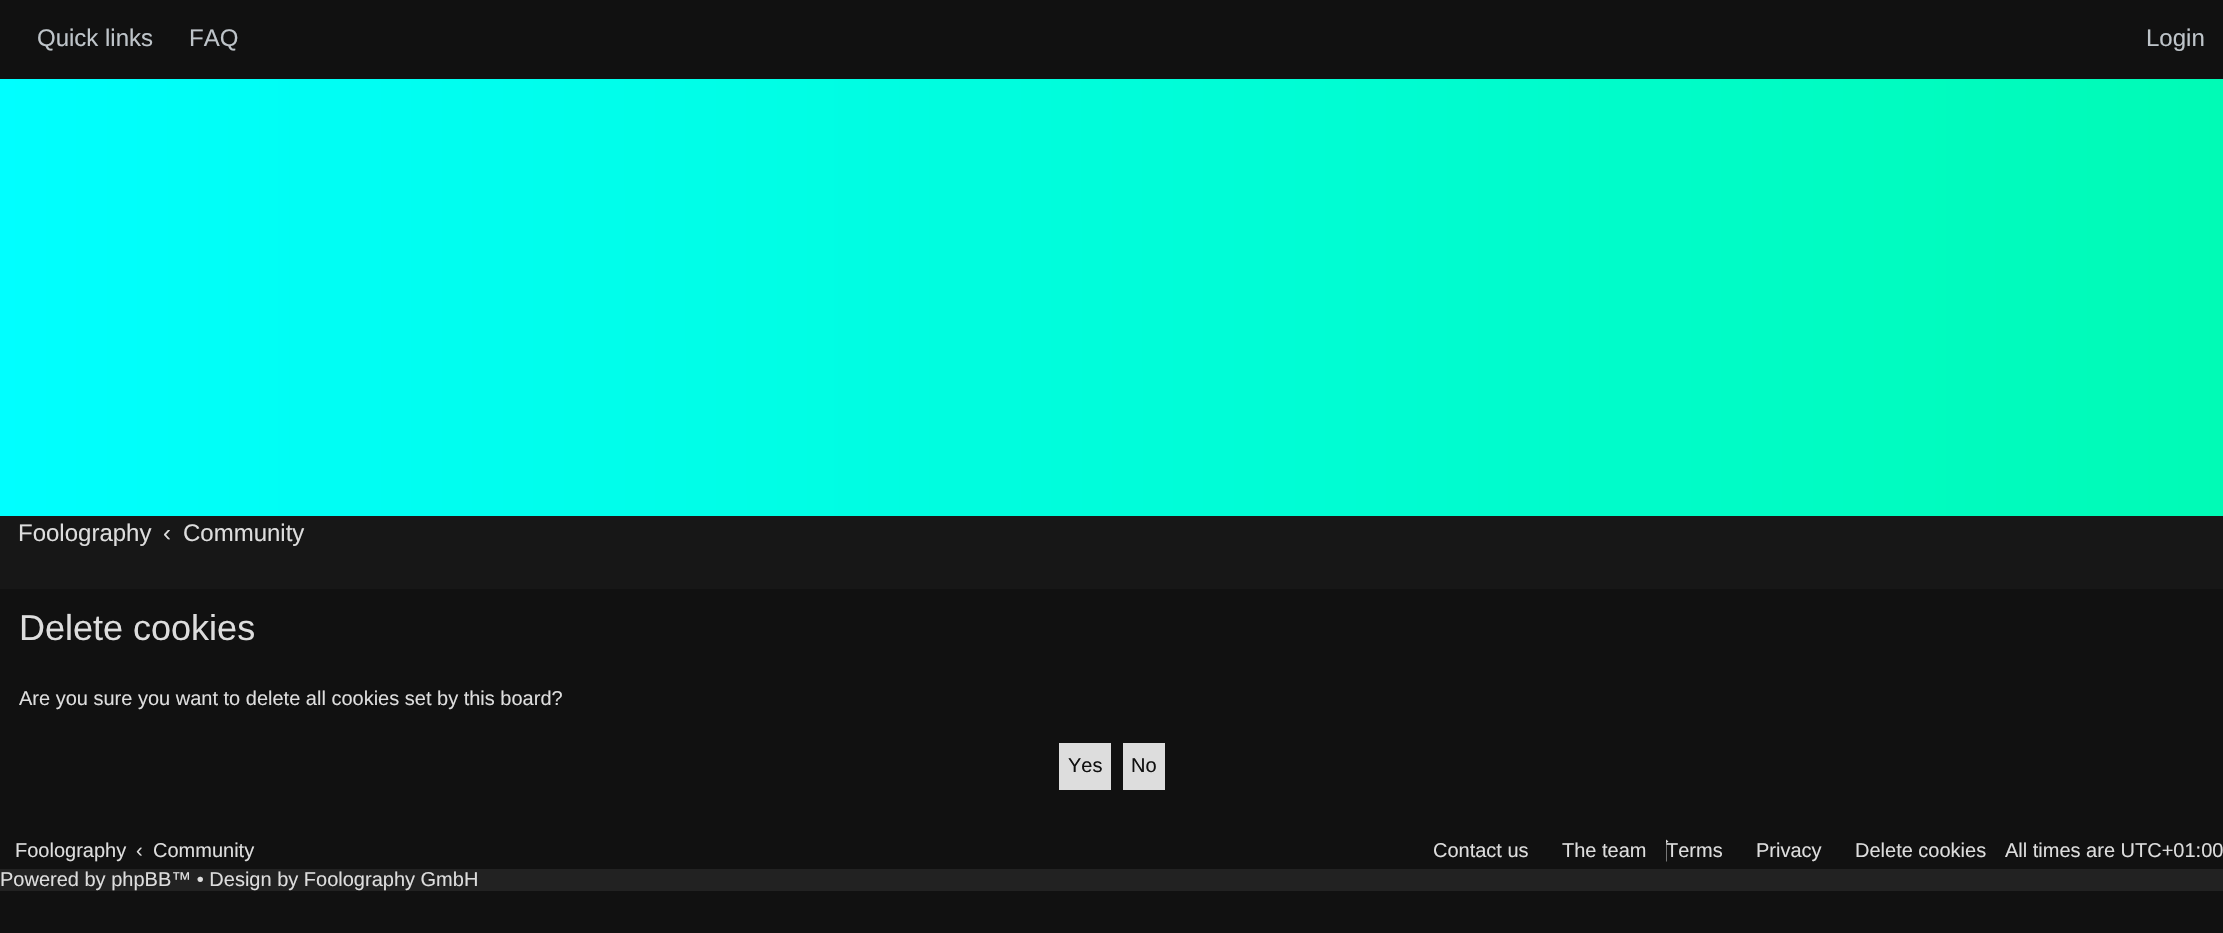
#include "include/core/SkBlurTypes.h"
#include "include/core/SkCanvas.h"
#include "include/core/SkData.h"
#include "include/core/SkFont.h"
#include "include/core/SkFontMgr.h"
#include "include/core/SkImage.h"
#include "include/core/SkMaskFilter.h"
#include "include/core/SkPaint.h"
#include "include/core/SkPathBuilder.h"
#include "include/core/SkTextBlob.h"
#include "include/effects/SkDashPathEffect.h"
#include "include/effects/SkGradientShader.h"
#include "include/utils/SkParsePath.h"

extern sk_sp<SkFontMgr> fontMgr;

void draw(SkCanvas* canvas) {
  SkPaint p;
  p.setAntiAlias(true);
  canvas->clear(SkColorSetRGB(17, 17, 17));
  {
    const SkColor colors[] = {SkColorSetRGB(0, 255, 255), SkColorSetRGB(0, 251, 182)};
    const float stops[] = {0, 1};
    const SkPoint ends[] = {{0, 298}, {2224, 297}};
    p.setShader(SkGradientShader::MakeLinear(ends, colors, stops, 2, SkTileMode::kClamp));
    p.setAlpha(255);
  }
  canvas->drawRect(SkRect::MakeLTRB(0, 79, 2223, 516), p);
  p.setShader(nullptr);
  p.setColor(SkColorSetRGB(23, 23, 23));
  canvas->drawRect(SkRect::MakeLTRB(0, 516, 2223, 589), p);
  p.setColor(SkColorSetRGB(221, 221, 221));
  canvas->drawRect(SkRect::MakeLTRB(1059, 743, 1111, 790), p);
  canvas->drawRect(SkRect::MakeLTRB(1123, 743, 1165, 790), p);
  canvas->drawPath(SkPathBuilder().moveTo(1668.5f, 841.5f).lineTo(1666.5f, 843).lineTo(1666.5f, 861.5f).lineTo(1666, 861.5f).lineTo(1666, 839.5f).close().detach(), p);
  p.setColor(SkColorSetRGB(34, 34, 34));
  canvas->drawRect(SkRect::MakeLTRB(0, 869, 2223, 891), p);
  SkFont font1(fontMgr->matchFamilyStyle("Liberation Sans", SkFontStyle::Normal()), 24);
  font1.setSubpixel(true);
  p.setColor(SkColorSetRGB(190, 196, 201));
  canvas->drawString("Quick links", 37, 46, font1, p);
  canvas->drawString("FAQ", 189, 46, font1, p);
  canvas->drawString("Login", 2146, 46, font1, p);
  p.setColor(SkColorSetRGB(221, 221, 221));
  canvas->drawString("Foolography", 18, 541, font1, p);
  canvas->drawString("‹", 163, 541, font1, p);
  canvas->drawString("Community", 183, 541, font1, p);
  SkFont font2(fontMgr->matchFamilyStyle("Liberation Sans", SkFontStyle::Normal()), 36);
  font2.setSubpixel(true);
  canvas->drawString("Delete cookies", 19, 640, font2, p);
  SkFont font3(fontMgr->matchFamilyStyle("Liberation Sans", SkFontStyle::Normal()), 20);
  font3.setSubpixel(true);
  canvas->drawString("Are you sure you want to delete all cookies set by this board?", 19, 705, font3, p);
  p.setColor(SkColorSetRGB(17, 17, 17));
  canvas->drawString("Yes", 1068, 772, font3, p);
  canvas->drawString("No", 1131, 772, font3, p);
  p.setColor(SkColorSetRGB(221, 221, 221));
  canvas->drawString("Foolography", 15, 857, font3, p);
  canvas->drawString("‹", 136, 857, font3, p);
  canvas->drawString("Community", 153, 857, font3, p);
  canvas->drawString("Contact us", 1433, 857, font3, p);
  canvas->drawString("The team", 1562, 857, font3, p);
  canvas->drawString("Terms", 1666, 857, font3, p);
  canvas->drawString("Privacy", 1756, 857, font3, p);
  canvas->drawString("Delete cookies", 1855, 857, font3, p);
  canvas->drawString("All times are UTC+01:00", 2005, 857, font3, p);
  canvas->drawString("Powered by phpBB™ • Design by Foolography GmbH", 0, 886, font3, p);
}
